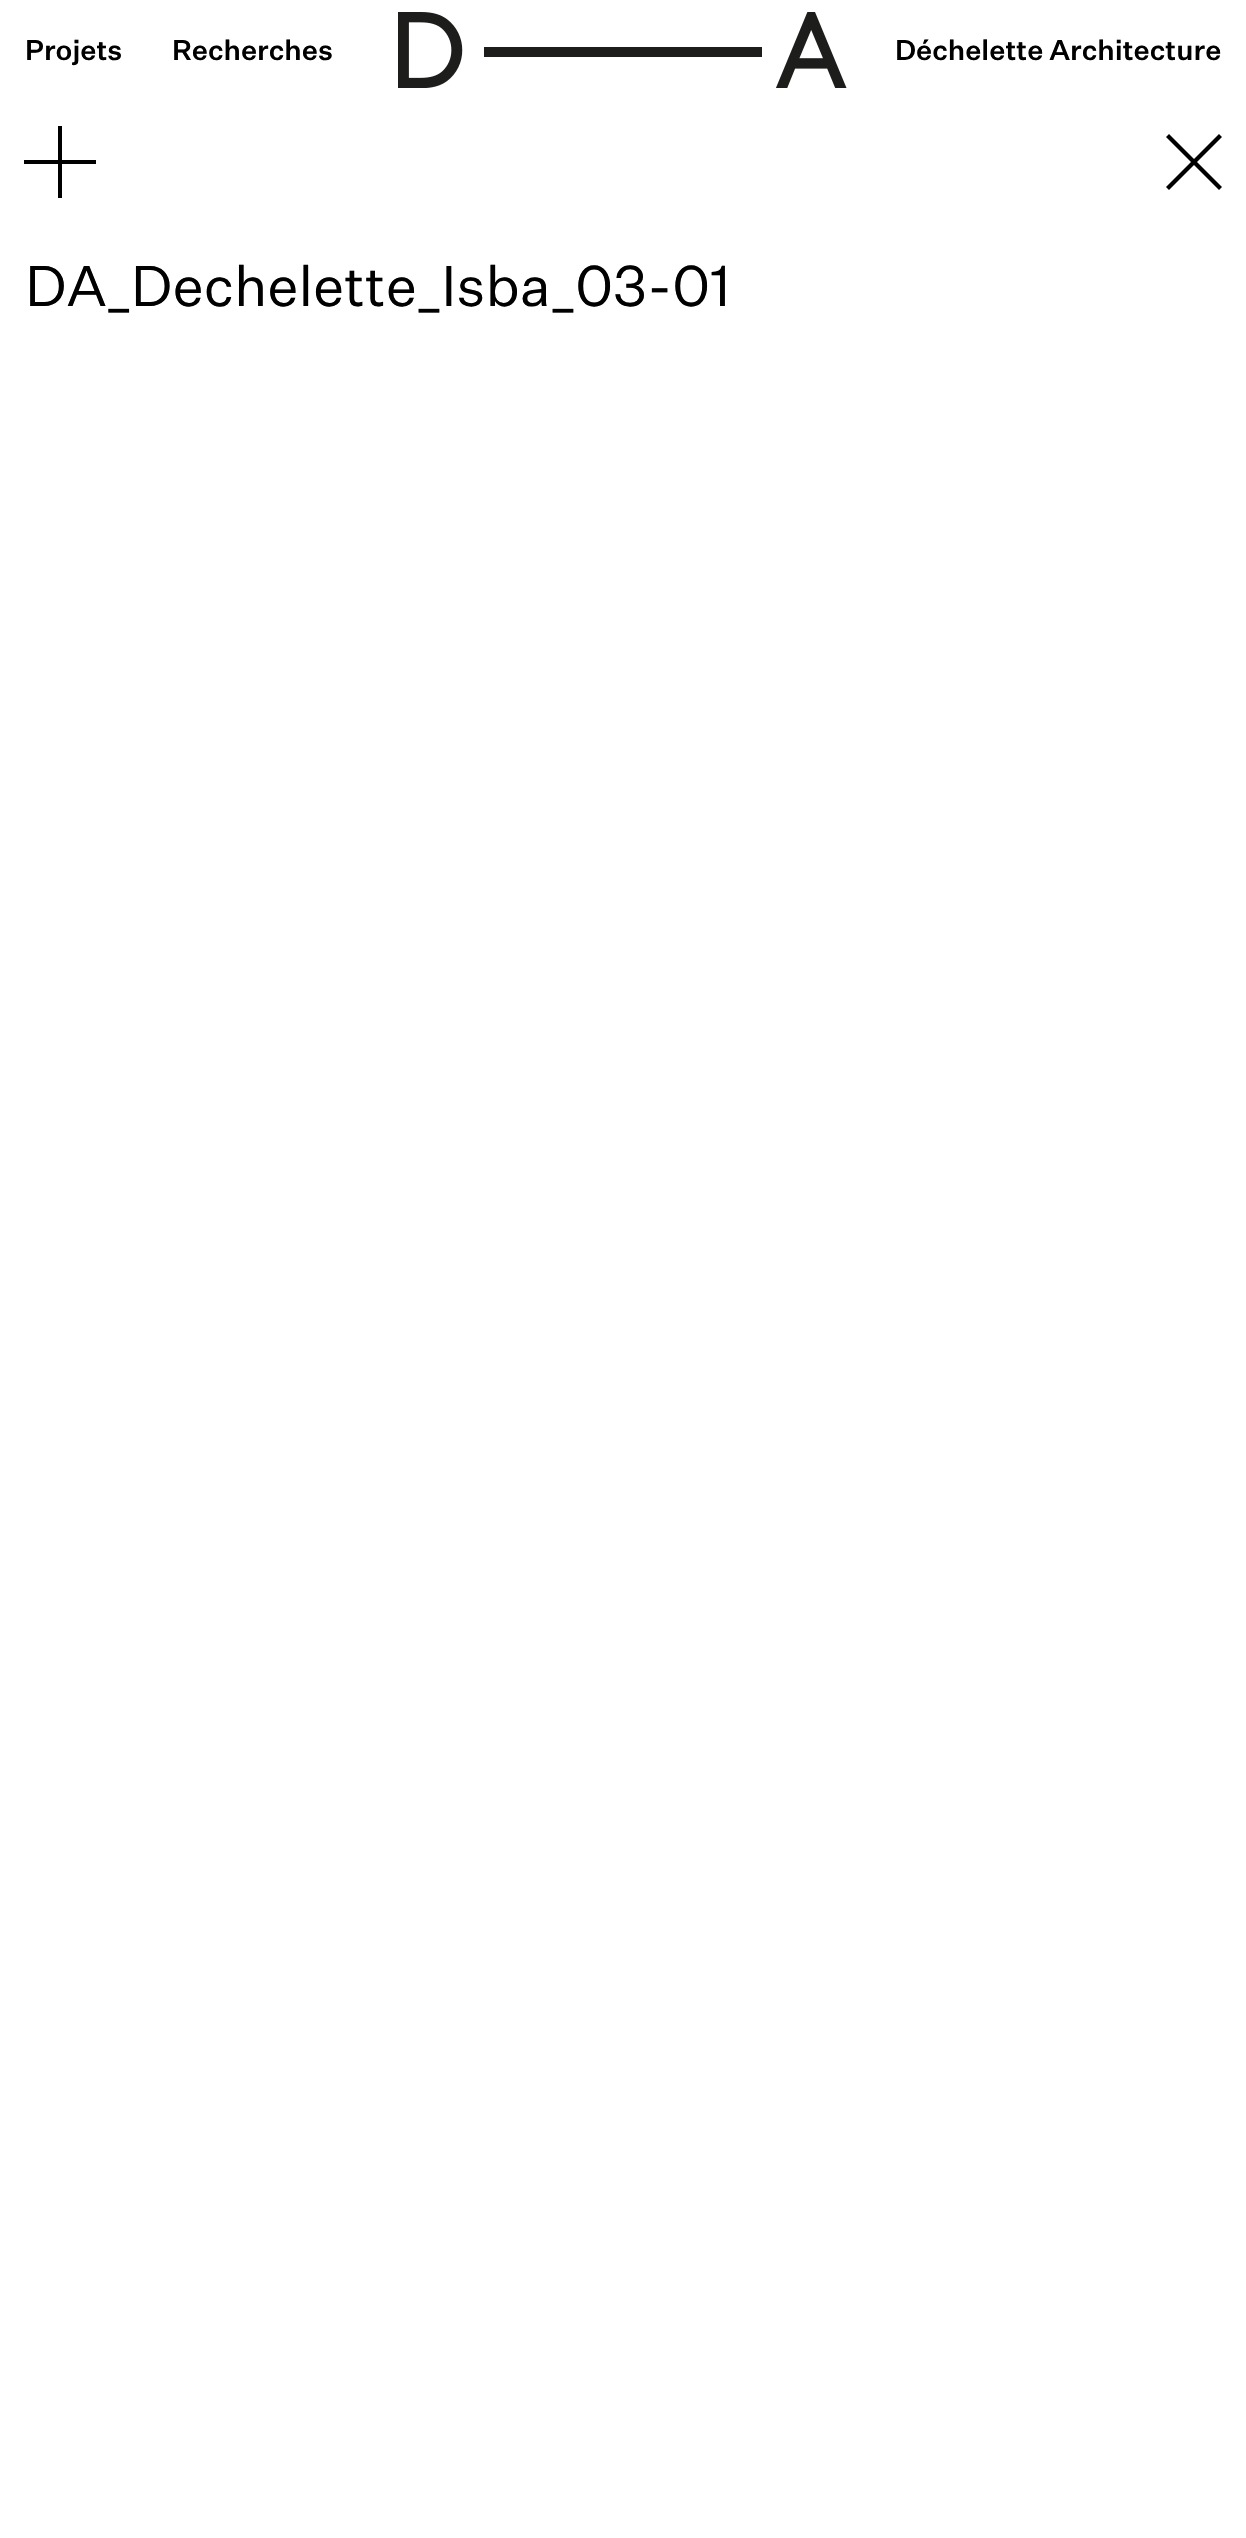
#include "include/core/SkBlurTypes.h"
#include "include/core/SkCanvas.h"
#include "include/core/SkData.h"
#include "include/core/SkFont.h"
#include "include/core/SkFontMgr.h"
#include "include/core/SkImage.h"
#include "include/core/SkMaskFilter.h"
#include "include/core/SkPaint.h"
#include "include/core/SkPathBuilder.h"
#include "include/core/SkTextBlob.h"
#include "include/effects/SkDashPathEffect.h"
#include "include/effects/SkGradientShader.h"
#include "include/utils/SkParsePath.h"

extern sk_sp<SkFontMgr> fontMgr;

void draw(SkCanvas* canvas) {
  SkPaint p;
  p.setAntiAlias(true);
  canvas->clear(SK_ColorWHITE);
  canvas->drawImageRect(SkImages::DeferredFromEncodedData(SkData::MakeFromFileName("images/1.png")), SkRect::MakeLTRB(398, 12, 847, 88), SkSamplingOptions());
  p.setColor(SK_ColorBLACK);
  canvas->drawPath(SkPathBuilder().moveTo(96, 160).lineTo(62, 160).lineTo(62, 126).lineTo(58, 126).lineTo(58, 160).lineTo(24, 160).lineTo(24, 164).lineTo(58, 164).lineTo(58, 198).lineTo(62, 198).lineTo(62, 164).lineTo(96, 164).close().detach(), p);
  canvas->drawPath(SkPathBuilder().moveTo(1222, 187).lineTo(1197, 162).lineTo(1222, 137).lineTo(1219, 134).lineTo(1194, 159).lineTo(1169, 134).lineTo(1166, 137).lineTo(1191, 162).lineTo(1166, 187).lineTo(1169, 190).lineTo(1194, 165).lineTo(1219, 190).close().detach(), p);
  SkFont font1(fontMgr->matchFamilyStyle("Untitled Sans", SkFontStyle(500, SkFontStyle::kNormal_Width, SkFontStyle::kUpright_Slant)), 28);
  font1.setSubpixel(true);
  canvas->drawString("Projets", 25, 60, font1, p);
  canvas->drawString("Recherches", 172, 60, font1, p);
  canvas->drawString("Déchelette Architecture", 895, 60, font1, p);
  SkFont font2(fontMgr->matchFamilyStyle("Untitled Sans", SkFontStyle::Normal()), 56);
  font2.setSubpixel(true);
  canvas->drawString("DA_Dechelette_Isba_03-01", 25, 306, font2, p);
}
